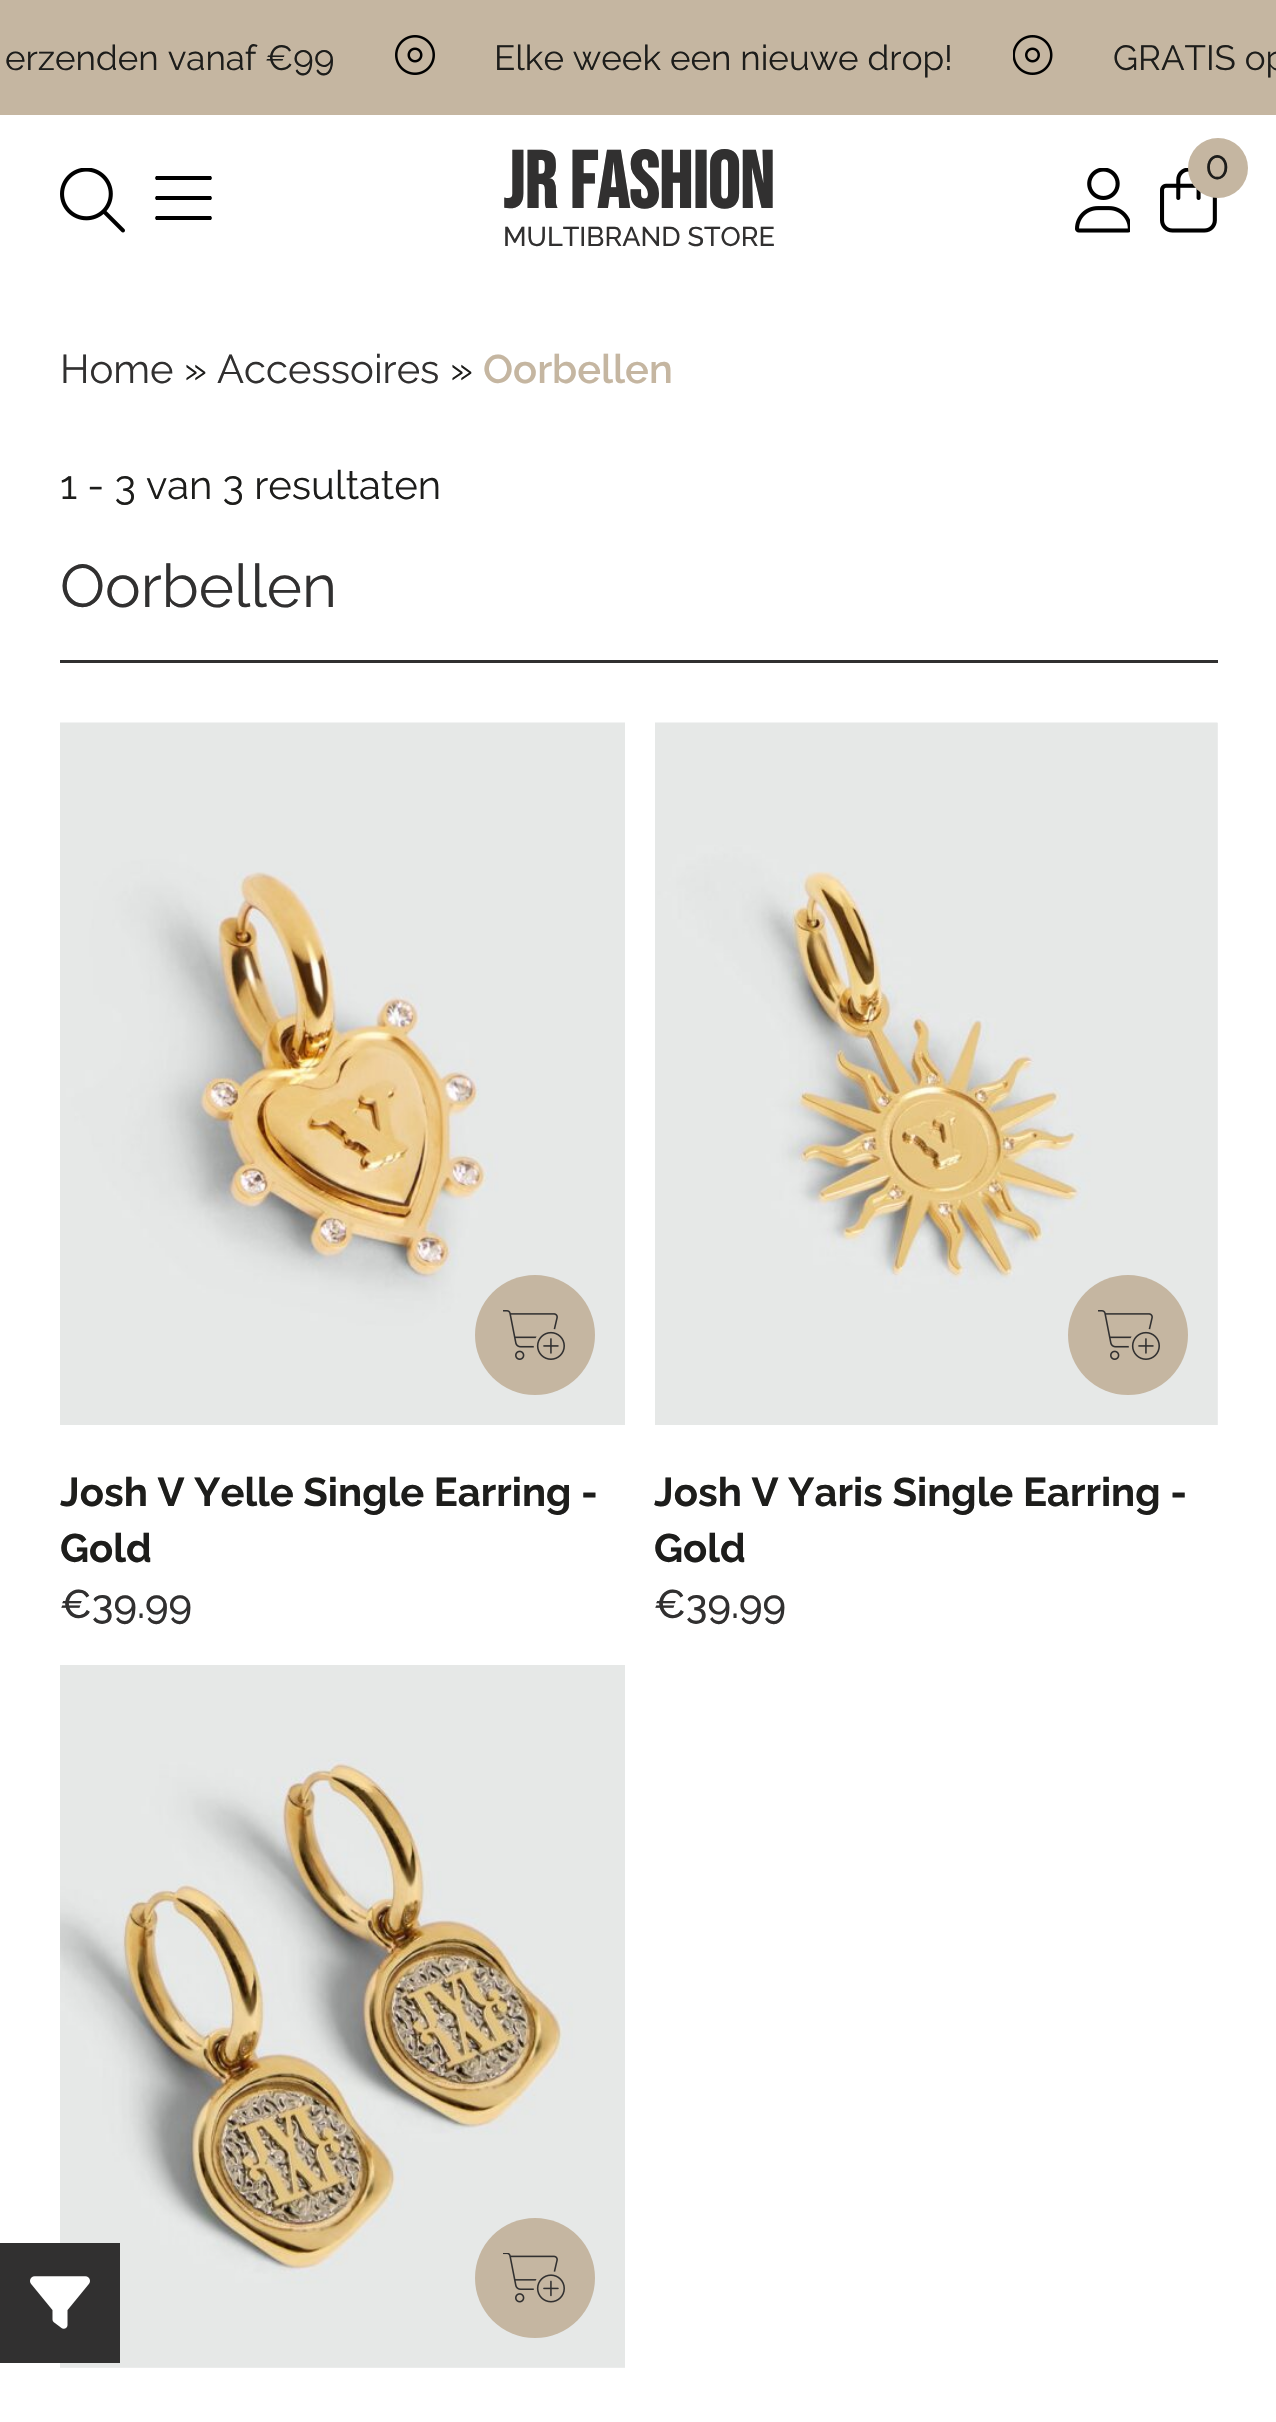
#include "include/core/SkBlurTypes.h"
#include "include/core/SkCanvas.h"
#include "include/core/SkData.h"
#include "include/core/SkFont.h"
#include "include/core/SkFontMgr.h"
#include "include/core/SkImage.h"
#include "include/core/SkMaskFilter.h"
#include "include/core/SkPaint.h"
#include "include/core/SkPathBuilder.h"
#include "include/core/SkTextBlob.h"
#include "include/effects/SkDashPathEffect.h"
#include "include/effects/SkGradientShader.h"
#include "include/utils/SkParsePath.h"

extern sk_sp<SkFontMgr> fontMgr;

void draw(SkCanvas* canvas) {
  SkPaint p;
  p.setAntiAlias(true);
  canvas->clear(SK_ColorWHITE);
  p.setColor(SkColorSetRGB(197, 182, 161));
  canvas->drawRect(SkRect::MakeLTRB(0, 0, 1276, 115), p);
  canvas->drawImageRect(SkImages::DeferredFromEncodedData(SkData::MakeFromFileName("images/1.png")), SkRect::MakeLTRB(395, 35, 435, 75), SkSamplingOptions());
  canvas->drawImageRect(SkImages::DeferredFromEncodedData(SkData::MakeFromFileName("images/2.png")), SkRect::MakeLTRB(1013, 35, 1053, 75), SkSamplingOptions());
  canvas->drawImageRect(SkImages::DeferredFromEncodedData(SkData::MakeFromFileName("images/3.png")), SkRect::MakeLTRB(60, 168, 125, 233), SkSamplingOptions());
  p.setColor(SK_ColorBLACK);
  canvas->drawPath(SkPathBuilder().moveTo(155, 178).lineTo(156, 176).lineTo(211, 176).lineTo(212, 178).lineTo(211, 180).lineTo(156, 180).close().moveTo(155, 198).lineTo(156, 196).lineTo(211, 196).lineTo(212, 198).lineTo(211, 200).lineTo(156, 200).close().moveTo(212, 218).lineTo(211, 220).lineTo(156, 220).lineTo(155, 218).lineTo(156, 216).lineTo(211, 216).close().detach(), p);
  canvas->drawImageRect(SkImages::DeferredFromEncodedData(SkData::MakeFromFileName("images/4.png")), SkRect::MakeLTRB(1075, 168, 1130, 233), SkSamplingOptions());
  canvas->drawImageRect(SkImages::DeferredFromEncodedData(SkData::MakeFromFileName("images/5.png")), SkRect::MakeLTRB(1160, 168, 1217, 233), SkSamplingOptions());
  p.setColor(SkColorSetRGB(197, 182, 161));
  canvas->drawCircle(1218, 168, 30, p);
  p.setColor(SkColorSetRGB(49, 48, 48));
  canvas->drawRect(SkRect::MakeLTRB(60, 660, 1218, 663), p);
  canvas->drawImageRect(SkImages::DeferredFromEncodedData(SkData::MakeFromFileName("images/6.png")), SkRect::MakeLTRB(60, 722, 625, 1425), SkSamplingOptions());
  p.setColor(SkColorSetRGB(197, 182, 161));
  canvas->drawCircle(535, 1335, 60, p);
  canvas->drawImageRect(SkImages::DeferredFromEncodedData(SkData::MakeFromFileName("images/7.png")), SkRect::MakeLTRB(503, 1310, 565, 1360), SkSamplingOptions());
  p.setColor(SkColorSetRGB(241, 241, 241));
  canvas->drawRect(SkRect::MakeLTRB(1217, 723, 1218, 1425), p);
  canvas->drawImageRect(SkImages::DeferredFromEncodedData(SkData::MakeFromFileName("images/8.png")), SkRect::MakeLTRB(655, 722, 1218, 1425), SkSamplingOptions());
  p.setColor(SkColorSetRGB(197, 182, 161));
  canvas->drawCircle(1128, 1335, 60, p);
  canvas->drawImageRect(SkImages::DeferredFromEncodedData(SkData::MakeFromFileName("images/7.png")), SkRect::MakeLTRB(1098, 1310, 1160, 1360), SkSamplingOptions());
  p.setColor(SkColorSetRGB(241, 241, 241));
  canvas->drawRect(SkRect::MakeLTRB(60, 2367, 625, 2368), p);
  canvas->drawImageRect(SkImages::DeferredFromEncodedData(SkData::MakeFromFileName("images/9.png")), SkRect::MakeLTRB(60, 1665, 625, 2368), SkSamplingOptions());
  p.setColor(SkColorSetRGB(197, 182, 161));
  canvas->drawCircle(535, 2278, 60, p);
  canvas->drawImageRect(SkImages::DeferredFromEncodedData(SkData::MakeFromFileName("images/10.png")), SkRect::MakeLTRB(503, 2253, 565, 2303), SkSamplingOptions());
  p.setColor(SkColorSetRGB(49, 48, 48));
  canvas->drawRect(SkRect::MakeLTRB(0, 2243, 120, 2363), p);
  canvas->drawImageRect(SkImages::DeferredFromEncodedData(SkData::MakeFromFileName("images/11.png")), SkRect::MakeLTRB(30, 2276, 90, 2329), SkSamplingOptions());
  SkFont font1(fontMgr->matchFamilyStyle("Raleway", SkFontStyle::Normal()), 35);
  font1.setSubpixel(true);
  p.setColor(SkColorSetRGB(29, 29, 27));
  canvas->drawString("erzenden vanaf €99", 5, 70, font1, p);
  canvas->drawString("Elke week een nieuwe drop!", 494, 70, font1, p);
  canvas->drawString("GRATIS op", 1113, 70, font1, p);
  SkFont font2(fontMgr->matchFamilyStyle("Bebas Neue", SkFontStyle::Bold()), 80);
  font2.setSubpixel(true);
  p.setColor(SkColorSetRGB(49, 48, 48));
  canvas->drawString("JR FASHION", 503, 208, font2, p);
  SkFont font3(fontMgr->matchFamilyStyle("Raleway", SkFontStyle(500, SkFontStyle::kNormal_Width, SkFontStyle::kUpright_Slant)), 27);
  font3.setSubpixel(true);
  canvas->drawString("MULTIBRAND STORE", 503, 246, font3, p);
  SkFont font4(fontMgr->matchFamilyStyle("Raleway", SkFontStyle::Normal()), 40);
  font4.setSubpixel(true);
  p.setColor(SkColorSetRGB(29, 29, 27));
  canvas->drawString("0", 1205, 179, font4, p);
  p.setColor(SkColorSetRGB(49, 48, 48));
  canvas->drawString("Home", 60, 383, font4, p);
  p.setColor(SkColorSetRGB(29, 29, 27));
  canvas->drawString("»", 184, 383, font4, p);
  p.setColor(SkColorSetRGB(49, 48, 48));
  canvas->drawString("Accessoires", 217, 383, font4, p);
  p.setColor(SkColorSetRGB(29, 29, 27));
  canvas->drawString("»", 450, 383, font4, p);
  SkFont font5(fontMgr->matchFamilyStyle("Raleway", SkFontStyle(600, SkFontStyle::kNormal_Width, SkFontStyle::kUpright_Slant)), 40);
  font5.setSubpixel(true);
  p.setColor(SkColorSetRGB(197, 182, 161));
  canvas->drawString("Oorbellen", 483, 383, font5, p);
  p.setColor(SkColorSetRGB(29, 29, 27));
  canvas->drawString("1 - 3 van 3 resultaten", 60, 499, font4, p);
  SkFont font6(fontMgr->matchFamilyStyle("Raleway", SkFontStyle::Normal()), 60);
  font6.setSubpixel(true);
  p.setColor(SkColorSetRGB(49, 48, 48));
  canvas->drawString("Oorbellen", 60, 607, font6, p);
  SkFont font7(fontMgr->matchFamilyStyle("Raleway", SkFontStyle::Bold()), 40);
  font7.setSubpixel(true);
  p.setColor(SkColorSetRGB(29, 29, 27));
  canvas->drawString("Josh V Yelle Single Earring -", 60, 1506, font7, p);
  canvas->drawString("Gold", 60, 1562, font7, p);
  SkFont font8(fontMgr->matchFamilyStyle("Raleway", SkFontStyle(500, SkFontStyle::kNormal_Width, SkFontStyle::kUpright_Slant)), 40);
  font8.setSubpixel(true);
  p.setColor(SkColorSetRGB(49, 48, 48));
  canvas->drawString("€39.99", 60, 1618, font8, p);
  p.setColor(SkColorSetRGB(29, 29, 27));
  canvas->drawString("Josh V Yaris Single Earring -", 654, 1506, font7, p);
  canvas->drawString("Gold", 654, 1562, font7, p);
  p.setColor(SkColorSetRGB(49, 48, 48));
  canvas->drawString("€39.99", 654, 1618, font8, p);
}
